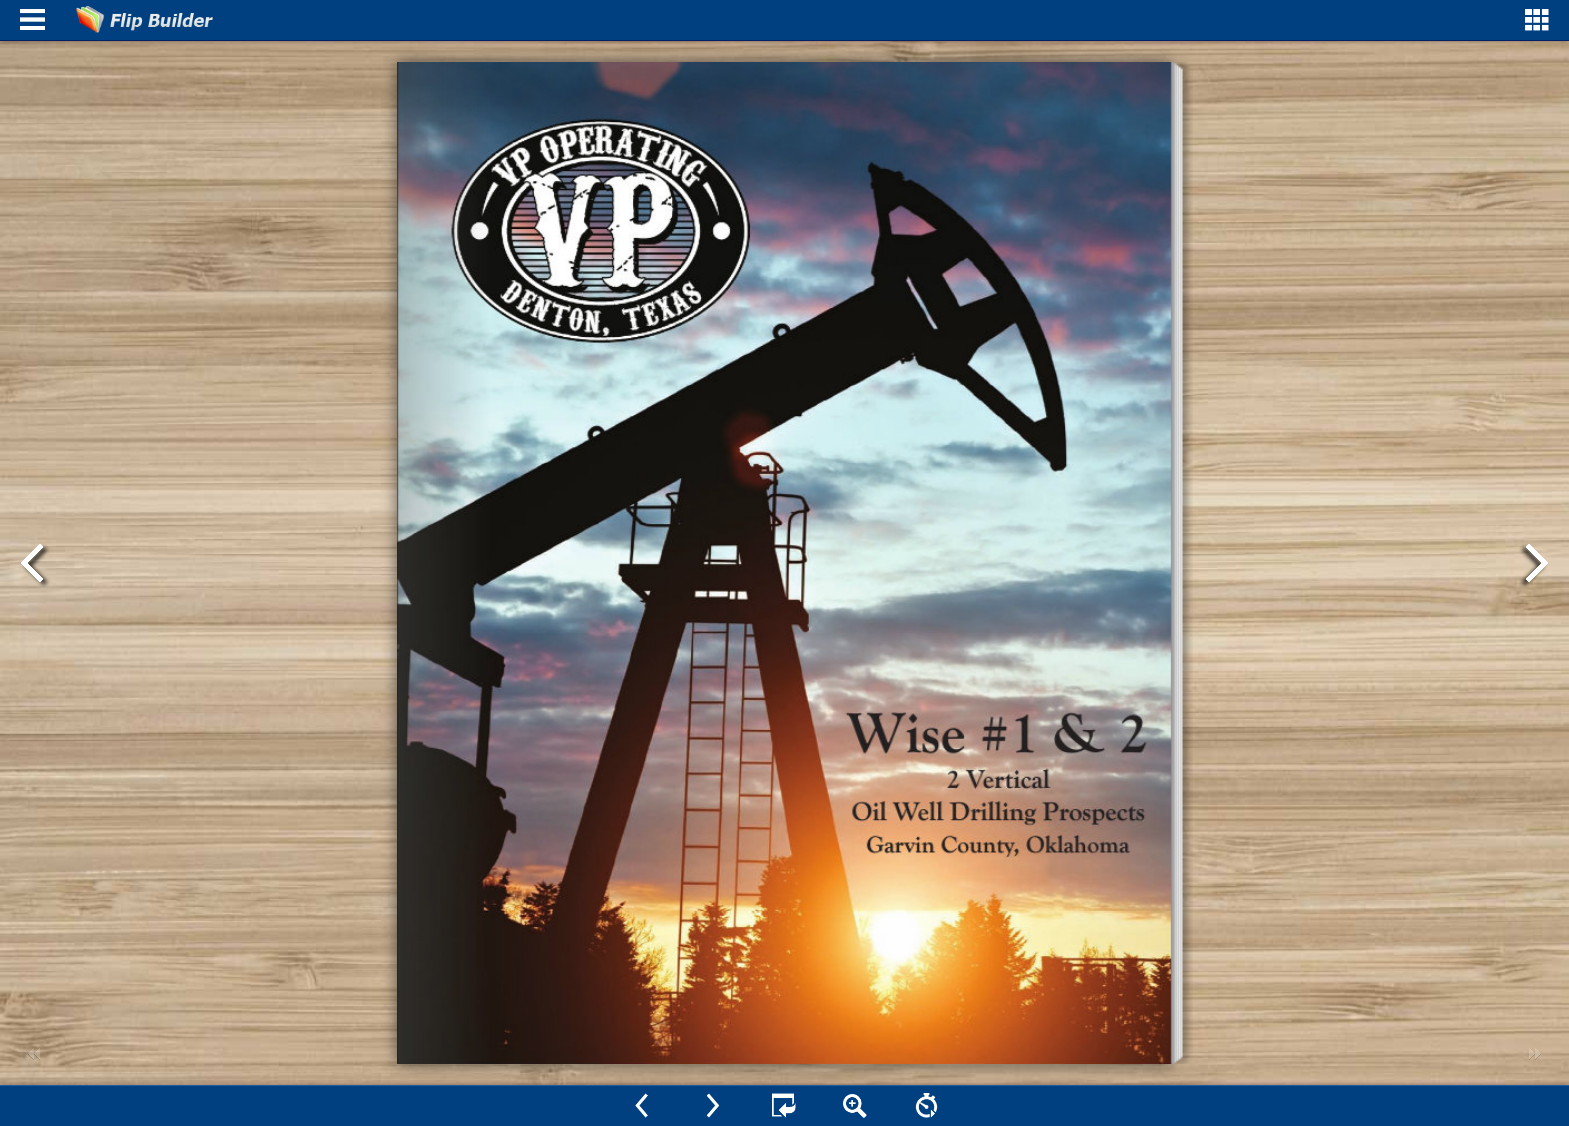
#include "include/core/SkBlurTypes.h"
#include "include/core/SkCanvas.h"
#include "include/core/SkData.h"
#include "include/core/SkFont.h"
#include "include/core/SkFontMgr.h"
#include "include/core/SkImage.h"
#include "include/core/SkMaskFilter.h"
#include "include/core/SkPaint.h"
#include "include/core/SkPathBuilder.h"
#include "include/core/SkTextBlob.h"
#include "include/effects/SkDashPathEffect.h"
#include "include/effects/SkGradientShader.h"
#include "include/utils/SkParsePath.h"

extern sk_sp<SkFontMgr> fontMgr;

void draw(SkCanvas* canvas) {
  SkPaint p;
  p.setAntiAlias(true);
  canvas->clear(SK_ColorWHITE);
  canvas->drawImageRect(SkImages::DeferredFromEncodedData(SkData::MakeFromFileName("images/9.png")), SkRect::MakeLTRB(0, 41, 1569, 1085), SkSamplingOptions());
  p.setColor(SkColorSetARGB(128, 40, 0, 0));
  p.setMaskFilter(SkMaskFilter::MakeBlur(kNormal_SkBlurStyle, 2.5f));
  canvas->drawRect(SkRect::MakeLTRB(0, 0, 1569, 41), p);
  p.setMaskFilter(nullptr);
  p.setColor(SkColorSetARGB(179, 40, 40, 40));
  p.setMaskFilter(SkMaskFilter::MakeBlur(kNormal_SkBlurStyle, 7.5f));
  canvas->drawRect(SkRect::MakeLTRB(397, 62, 1172, 1064), p);
  p.setMaskFilter(nullptr);
  p.setColor(SkColorSetRGB(0, 64, 128));
  canvas->drawRect(SkRect::MakeLTRB(0, 0, 1569, 40), p);
  p.setColor(SkColorSetRGB(0, 34, 98));
  canvas->drawRect(SkRect::MakeLTRB(0, 40, 1569, 41), p);
  canvas->drawImageRect(SkImages::DeferredFromEncodedData(SkData::MakeFromFileName("images/1.png")), SkRect::MakeLTRB(20, 9, 45, 30), SkSamplingOptions());
  canvas->drawImageRect(SkImages::DeferredFromEncodedData(SkData::MakeFromFileName("images/2.png")), SkRect::MakeLTRB(76, 6, 213, 33), SkSamplingOptions());
  canvas->drawImageRect(SkImages::DeferredFromEncodedData(SkData::MakeFromFileName("images/3.png")), SkRect::MakeLTRB(1525, 9, 1549, 31), SkSamplingOptions());
  canvas->drawImageRect(SkImages::DeferredFromEncodedData(SkData::MakeFromFileName("images/7.png")), SkRect::MakeLTRB(1171, 62, 1172, 1064), SkSamplingOptions());
  canvas->drawImageRect(SkImages::DeferredFromEncodedData(SkData::MakeFromFileName("images/8.png")), SkRect::MakeLTRB(1171, 62, 1172, 1064), SkSamplingOptions());
  canvas->drawImageRect(SkImages::DeferredFromEncodedData(SkData::MakeFromFileName("images/5.png")), SkRect::MakeLTRB(1171, 62, 1172, 1064), SkSamplingOptions());
  canvas->drawImageRect(SkImages::DeferredFromEncodedData(SkData::MakeFromFileName("images/4.png")), SkRect::MakeLTRB(397, 62, 1172, 1064), SkSamplingOptions());
  canvas->drawImageRect(SkImages::DeferredFromEncodedData(SkData::MakeFromFileName("images/6.png")), SkRect::MakeLTRB(1170, 62, 1193, 1064), SkSamplingOptions());
  canvas->drawImageRect(SkImages::DeferredFromEncodedData(SkData::MakeFromFileName("images/10.png")), SkRect::MakeLTRB(21, 544, 50, 588), SkSamplingOptions());
  canvas->drawImageRect(SkImages::DeferredFromEncodedData(SkData::MakeFromFileName("images/11.png")), SkRect::MakeLTRB(1519, 544, 1548, 588), SkSamplingOptions());
  canvas->drawImageRect(SkImages::DeferredFromEncodedData(SkData::MakeFromFileName("images/12.png")), SkRect::MakeLTRB(28, 1048, 40, 1060), SkSamplingOptions());
  canvas->drawImageRect(SkImages::DeferredFromEncodedData(SkData::MakeFromFileName("images/13.png")), SkRect::MakeLTRB(1529, 1048, 1541, 1060), SkSamplingOptions());
  p.setColor(SkColorSetARGB(128, 40, 0, 0));
  p.setMaskFilter(SkMaskFilter::MakeBlur(kNormal_SkBlurStyle, 2.5f));
  canvas->drawRect(SkRect::MakeLTRB(0, 1085, 1569, 1126), p);
  p.setMaskFilter(nullptr);
  p.setColor(SkColorSetRGB(0, 64, 128));
  canvas->drawRect(SkRect::MakeLTRB(0, 1086, 1569, 1126), p);
  p.setColor(SkColorSetRGB(30, 94, 158));
  canvas->drawRect(SkRect::MakeLTRB(0, 1085, 1569, 1086), p);
  canvas->drawImageRect(SkImages::DeferredFromEncodedData(SkData::MakeFromFileName("images/14.png")), SkRect::MakeLTRB(635, 1093, 648, 1118), SkSamplingOptions());
  canvas->drawImageRect(SkImages::DeferredFromEncodedData(SkData::MakeFromFileName("images/15.png")), SkRect::MakeLTRB(706, 1093, 720, 1118), SkSamplingOptions());
  canvas->drawImageRect(SkImages::DeferredFromEncodedData(SkData::MakeFromFileName("images/16.png")), SkRect::MakeLTRB(772, 1093, 796, 1118), SkSamplingOptions());
  canvas->drawImageRect(SkImages::DeferredFromEncodedData(SkData::MakeFromFileName("images/17.png")), SkRect::MakeLTRB(843, 1094, 867, 1118), SkSamplingOptions());
  canvas->drawImageRect(SkImages::DeferredFromEncodedData(SkData::MakeFromFileName("images/18.png")), SkRect::MakeLTRB(915, 1093, 938, 1118), SkSamplingOptions());
}
